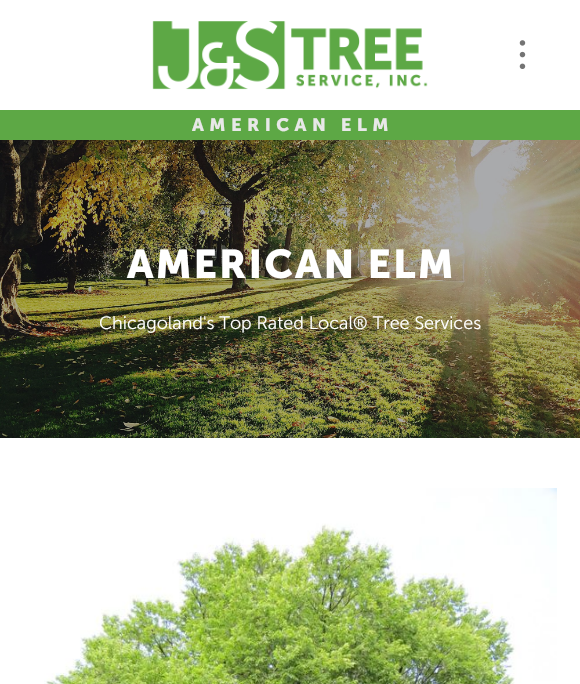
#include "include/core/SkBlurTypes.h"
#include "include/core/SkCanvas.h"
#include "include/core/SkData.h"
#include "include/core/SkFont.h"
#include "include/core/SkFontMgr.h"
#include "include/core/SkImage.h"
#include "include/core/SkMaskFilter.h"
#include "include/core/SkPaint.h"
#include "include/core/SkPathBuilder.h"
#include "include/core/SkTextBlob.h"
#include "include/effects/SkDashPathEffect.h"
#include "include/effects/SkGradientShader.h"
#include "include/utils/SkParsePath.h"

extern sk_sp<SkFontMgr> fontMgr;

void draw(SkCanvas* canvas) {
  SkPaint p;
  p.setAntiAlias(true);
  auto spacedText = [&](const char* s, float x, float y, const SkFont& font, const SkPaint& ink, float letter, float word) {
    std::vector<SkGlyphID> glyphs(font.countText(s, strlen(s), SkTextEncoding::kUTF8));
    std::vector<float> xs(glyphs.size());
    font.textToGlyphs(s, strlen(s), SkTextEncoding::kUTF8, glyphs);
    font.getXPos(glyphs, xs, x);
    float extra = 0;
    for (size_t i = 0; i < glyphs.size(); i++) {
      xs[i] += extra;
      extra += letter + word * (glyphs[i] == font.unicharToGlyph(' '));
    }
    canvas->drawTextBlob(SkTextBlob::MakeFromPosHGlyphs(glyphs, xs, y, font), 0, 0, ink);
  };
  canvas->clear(SK_ColorWHITE);
  canvas->drawImageRect(SkImages::DeferredFromEncodedData(SkData::MakeFromFileName("images/1.png")), SkRect::MakeLTRB(152, 21, 428, 90), SkSamplingOptions());
  canvas->drawImageRect(SkImages::DeferredFromEncodedData(SkData::MakeFromFileName("images/2.png")), SkRect::MakeLTRB(519, 40, 526, 69), SkSamplingOptions());
  p.setColor(SkColorSetRGB(93, 168, 69));
  canvas->drawRect(SkRect::MakeLTRB(0, 110, 580, 140), p);
  canvas->drawImageRect(SkImages::DeferredFromEncodedData(SkData::MakeFromFileName("images/3.png")), SkRect::MakeLTRB(0, 140, 580, 438), SkSamplingOptions());
  canvas->drawImageRect(SkImages::DeferredFromEncodedData(SkData::MakeFromFileName("images/4.png")), SkRect::MakeLTRB(44, 488, 557, 684), SkSamplingOptions());
  SkFont font1(fontMgr->matchFamilyStyle("Museo Sans", SkFontStyle::Bold()), 18);
  font1.setSubpixel(true);
  p.setColor(SkColorSetRGB(232, 232, 232));
  spacedText("AMERICAN ELM", 192, 131, font1, p, 5.4f, 0);
  SkFont font2(fontMgr->matchFamilyStyle("Museo Sans", SkFontStyle::Bold()), 40);
  font2.setSubpixel(true);
  p.setColor(SK_ColorWHITE);
  spacedText("AMERICAN ELM", 127, 278, font2, p, 2, 0);
  SkFont font3(fontMgr->matchFamilyStyle("Museo Sans", SkFontStyle(300, SkFontStyle::kNormal_Width, SkFontStyle::kUpright_Slant)), 18);
  font3.setSubpixel(true);
  canvas->drawString("Chicagoland's Top Rated Local® Tree Services", 99, 329, font3, p);
}
